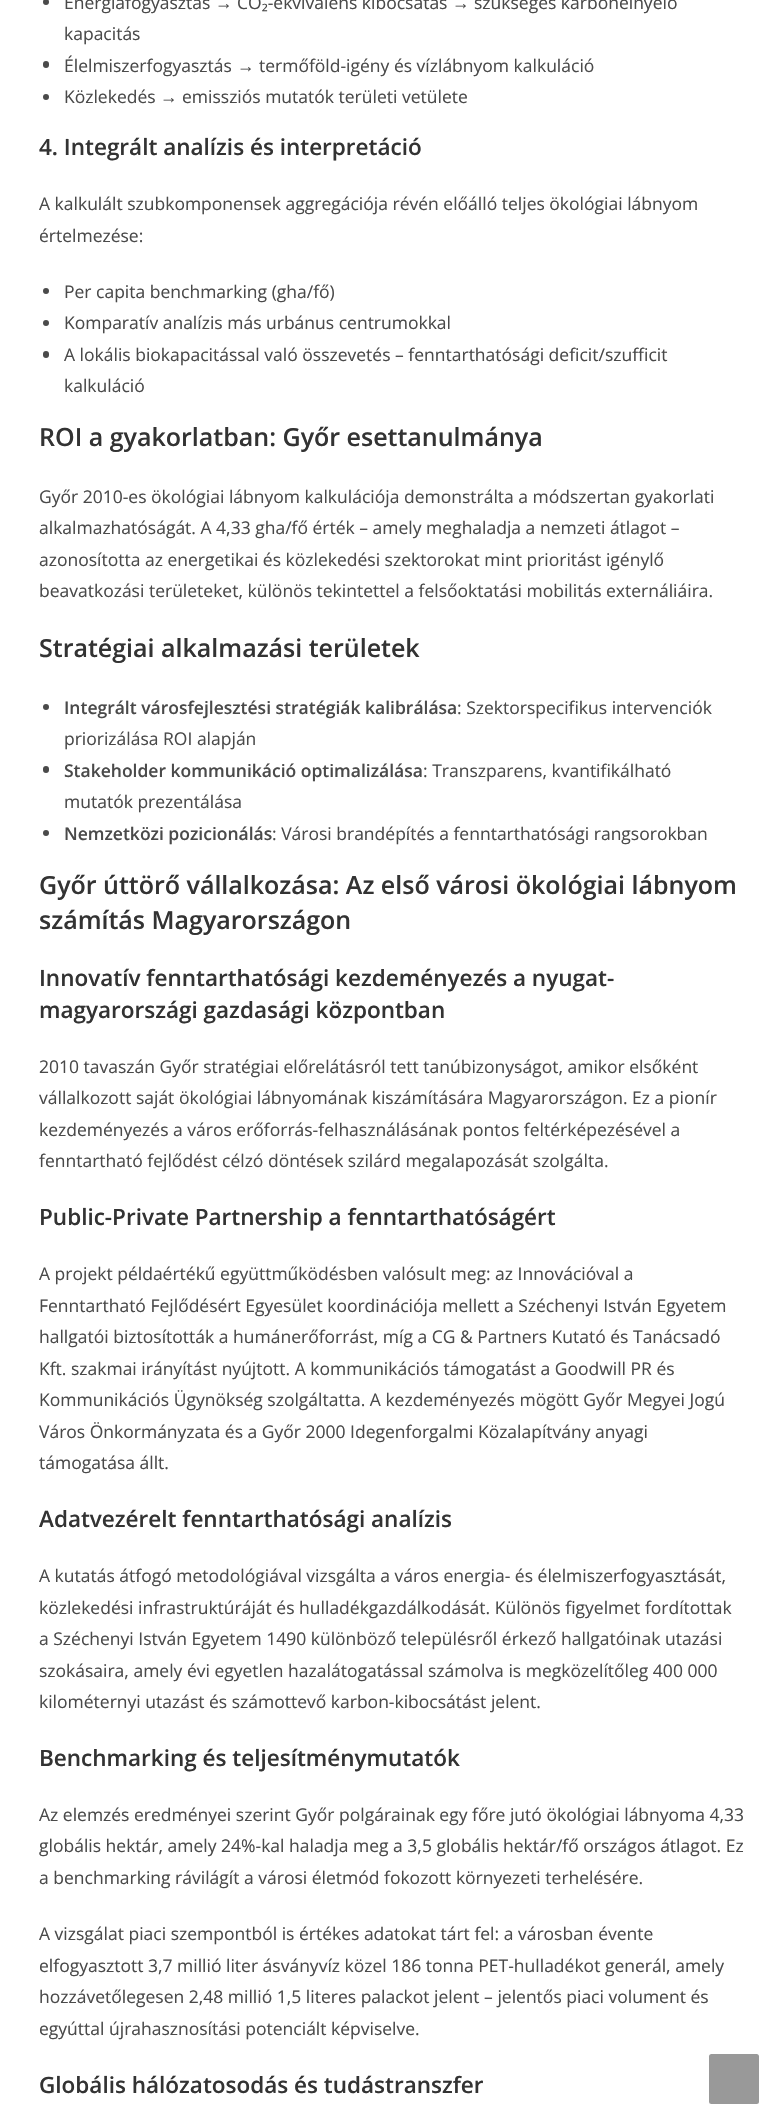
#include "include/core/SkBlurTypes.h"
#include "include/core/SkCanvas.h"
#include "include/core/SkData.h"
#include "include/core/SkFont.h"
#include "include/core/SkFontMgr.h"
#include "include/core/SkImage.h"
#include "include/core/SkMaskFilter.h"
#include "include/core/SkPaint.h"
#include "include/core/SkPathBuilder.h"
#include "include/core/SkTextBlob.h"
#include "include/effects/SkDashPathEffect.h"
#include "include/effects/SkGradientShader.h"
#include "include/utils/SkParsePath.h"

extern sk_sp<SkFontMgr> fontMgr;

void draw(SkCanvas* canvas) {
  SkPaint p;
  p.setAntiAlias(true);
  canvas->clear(SK_ColorWHITE);
  p.setColor(SkColorSetRGB(74, 74, 74));
  canvas->drawCircle(46, 2, 3, p);
  canvas->drawRoundRect(SkRect::MakeLTRB(43, 61, 49, 68), 3, 3, p);
  canvas->drawCircle(46, 97, 3, p);
  canvas->drawCircle(46, 291, 3, p);
  canvas->drawCircle(46, 323, 3, p);
  canvas->drawRoundRect(SkRect::MakeLTRB(43, 351, 49, 358), 3, 3, p);
  canvas->drawCircle(46, 707, 3, p);
  canvas->drawRoundRect(SkRect::MakeLTRB(43, 766, 49, 773), 3, 3, p);
  canvas->drawCircle(46, 833, 3, p);
  p.setColor(SkColorSetRGB(153, 153, 153));
  canvas->drawRoundRect(SkRect::MakeLTRB(709, 2054, 759, 2104), 2.5f, 2.5f, p);
  SkFont font1(fontMgr->matchFamilyStyle("Open Sans", SkFontStyle::Normal()), 17.5f);
  font1.setSubpixel(true);
  p.setColor(SkColorSetRGB(74, 74, 74));
  canvas->drawString("Energiafogyasztás", 64, 9, font1, p);
  SkFont font2(fontMgr->matchFamilyStyle("Liberation Sans", SkFontStyle::Normal()), 17.5f);
  font2.setSubpixel(true);
  canvas->drawString("→", 215, 9, font2, p);
  canvas->drawString("CO₂-ekvivalens kibocsátás", 237, 9, font1, p);
  canvas->drawString("→", 452, 9, font2, p);
  canvas->drawString("szükséges karbonelnyelő", 474, 9, font1, p);
  canvas->drawString("kapacitás", 64, 40, font1, p);
  canvas->drawString("Élelmiszerfogyasztás", 64, 72, font1, p);
  canvas->drawString("termőföld-igény és vízlábnyom kalkuláció", 259, 72, font1, p);
  canvas->drawString("→", 237, 72, font2, p);
  canvas->drawString("Közlekedés", 64, 103, font1, p);
  canvas->drawString("emissziós mutatók területi vetülete", 182, 103, font1, p);
  canvas->drawString("→", 160, 103, font2, p);
  SkFont font3(fontMgr->matchFamilyStyle("Open Sans", SkFontStyle(600, SkFontStyle::kNormal_Width, SkFontStyle::kUpright_Slant)), 22.5f);
  font3.setSubpixel(true);
  p.setColor(SkColorSetRGB(51, 51, 51));
  canvas->drawString("4. Integrált analízis és interpretáció", 39, 155, font3, p);
  p.setColor(SkColorSetRGB(74, 74, 74));
  canvas->drawString("A kalkulált szubkomponensek aggregációja révén előálló teljes ökológiai lábnyom", 39, 210, font1, p);
  canvas->drawString("értelmezése:", 39, 242, font1, p);
  canvas->drawString("Per capita benchmarking (gha/fő)", 64, 298, font1, p);
  canvas->drawString("Komparatív analízis más urbánus centrumokkal", 64, 329, font1, p);
  canvas->drawString("A lokális biokapacitással való összevetés – fenntarthatósági deficit/szufficit", 64, 361, font1, p);
  canvas->drawString("kalkuláció", 64, 392, font1, p);
  SkFont font4(fontMgr->matchFamilyStyle("Open Sans", SkFontStyle(600, SkFontStyle::kNormal_Width, SkFontStyle::kUpright_Slant)), 25);
  font4.setSubpixel(true);
  p.setColor(SkColorSetRGB(51, 51, 51));
  canvas->drawString("ROI a gyakorlatban: Győr esettanulmánya", 39, 446, font4, p);
  p.setColor(SkColorSetRGB(74, 74, 74));
  canvas->drawString("Győr 2010-es ökológiai lábnyom kalkulációja demonstrálta a módszertan gyakorlati", 39, 503, font1, p);
  canvas->drawString("alkalmazhatóságát. A 4,33 gha/fő érték – amely meghaladja a nemzeti átlagot –", 39, 534, font1, p);
  canvas->drawString("azonosította az energetikai és közlekedési szektorokat mint prioritást igénylő", 39, 566, font1, p);
  canvas->drawString("beavatkozási területeket, különös tekintettel a felsőoktatási mobilitás externáliáira.", 39, 597, font1, p);
  p.setColor(SkColorSetRGB(51, 51, 51));
  canvas->drawString("Stratégiai alkalmazási területek", 39, 657, font4, p);
  SkFont font5(fontMgr->matchFamilyStyle("Open Sans", SkFontStyle(600, SkFontStyle::kNormal_Width, SkFontStyle::kUpright_Slant)), 17.5f);
  font5.setSubpixel(true);
  p.setColor(SkColorSetRGB(74, 74, 74));
  canvas->drawString("Integrált városfejlesztési stratégiák kalibrálása", 64, 714, font5, p);
  canvas->drawString(": Szektorspecifikus intervenciók", 457, 714, font1, p);
  canvas->drawString("priorizálása ROI alapján", 64, 745, font1, p);
  canvas->drawString("Stakeholder kommunikáció optimalizálása", 64, 777, font5, p);
  canvas->drawString(": Transzparens, kvantifikálható", 423, 777, font1, p);
  canvas->drawString("mutatók prezentálása", 64, 808, font1, p);
  canvas->drawString("Nemzetközi pozicionálás", 64, 840, font5, p);
  canvas->drawString(": Városi brandépítés a fenntarthatósági rangsorokban", 272, 840, font1, p);
  p.setColor(SkColorSetRGB(51, 51, 51));
  canvas->drawString("Győr úttörő vállalkozása: Az első városi ökológiai lábnyom", 39, 894, font4, p);
  canvas->drawString("számítás Magyarországon", 39, 929, font4, p);
  canvas->drawString("Innovatív fenntarthatósági kezdeményezés a nyugat-", 39, 986, font3, p);
  canvas->drawString("magyarországi gazdasági központban", 39, 1018, font3, p);
  p.setColor(SkColorSetRGB(74, 74, 74));
  canvas->drawString("2010 tavaszán Győr stratégiai előrelátásról tett tanúbizonyságot, amikor elsőként", 39, 1073, font1, p);
  canvas->drawString("vállalkozott saját ökológiai lábnyomának kiszámítására Magyarországon. Ez a pionír", 39, 1104, font1, p);
  canvas->drawString("kezdeményezés a város erőforrás-felhasználásának pontos feltérképezésével a", 39, 1136, font1, p);
  canvas->drawString("fenntartható fejlődést célzó döntések szilárd megalapozását szolgálta.", 39, 1167, font1, p);
  p.setColor(SkColorSetRGB(51, 51, 51));
  canvas->drawString("Public-Private Partnership a fenntarthatóságért", 39, 1225, font3, p);
  p.setColor(SkColorSetRGB(74, 74, 74));
  canvas->drawString("A projekt példaértékű együttműködésben valósult meg: az Innovációval a", 39, 1280, font1, p);
  canvas->drawString("Fenntartható Fejlődésért Egyesület koordinációja mellett a Széchenyi István Egyetem", 39, 1312, font1, p);
  canvas->drawString("hallgatói biztosították a humánerőforrást, míg a CG & Partners Kutató és Tanácsadó", 39, 1343, font1, p);
  canvas->drawString("Kft. szakmai irányítást nyújtott. A kommunikációs támogatást a Goodwill PR és", 39, 1375, font1, p);
  canvas->drawString("Kommunikációs Ügynökség szolgáltatta. A kezdeményezés mögött Győr Megyei Jogú", 39, 1406, font1, p);
  canvas->drawString("Város Önkormányzata és a Győr 2000 Idegenforgalmi Közalapítvány anyagi", 39, 1438, font1, p);
  canvas->drawString("támogatása állt.", 39, 1469, font1, p);
  p.setColor(SkColorSetRGB(51, 51, 51));
  canvas->drawString("Adatvezérelt fenntarthatósági analízis", 39, 1527, font3, p);
  p.setColor(SkColorSetRGB(74, 74, 74));
  canvas->drawString("A kutatás átfogó metodológiával vizsgálta a város energia- és élelmiszerfogyasztását,", 39, 1582, font1, p);
  canvas->drawString("közlekedési infrastruktúráját és hulladékgazdálkodását. Különös figyelmet fordítottak", 39, 1614, font1, p);
  canvas->drawString("a Széchenyi István Egyetem 1490 különböző településről érkező hallgatóinak utazási", 39, 1645, font1, p);
  canvas->drawString("szokásaira, amely évi egyetlen hazalátogatással számolva is megközelítőleg 400 000", 39, 1677, font1, p);
  canvas->drawString("kilométernyi utazást és számottevő karbon-kibocsátást jelent.", 39, 1708, font1, p);
  p.setColor(SkColorSetRGB(51, 51, 51));
  canvas->drawString("Benchmarking és teljesítménymutatók", 39, 1766, font3, p);
  p.setColor(SkColorSetRGB(74, 74, 74));
  canvas->drawString("Az elemzés eredményei szerint Győr polgárainak egy főre jutó ökológiai lábnyoma 4,33", 39, 1821, font1, p);
  canvas->drawString("globális hektár, amely 24%-kal haladja meg a 3,5 globális hektár/fő országos átlagot. Ez", 39, 1852, font1, p);
  canvas->drawString("a benchmarking rávilágít a városi életmód fokozott környezeti terhelésére.", 39, 1884, font1, p);
  canvas->drawString("A vizsgálat piaci szempontból is értékes adatokat tárt fel: a városban évente", 39, 1940, font1, p);
  canvas->drawString("elfogyasztott 3,7 millió liter ásványvíz közel 186 tonna PET-hulladékot generál, amely", 39, 1972, font1, p);
  canvas->drawString("hozzávetőlegesen 2,48 millió 1,5 literes palackot jelent – jelentős piaci volument és", 39, 2003, font1, p);
  canvas->drawString("egyúttal újrahasznosítási potenciált képviselve.", 39, 2035, font1, p);
  p.setColor(SkColorSetRGB(51, 51, 51));
  canvas->drawString("Globális hálózatosodás és tudástranszfer", 39, 2093, font3, p);
}
